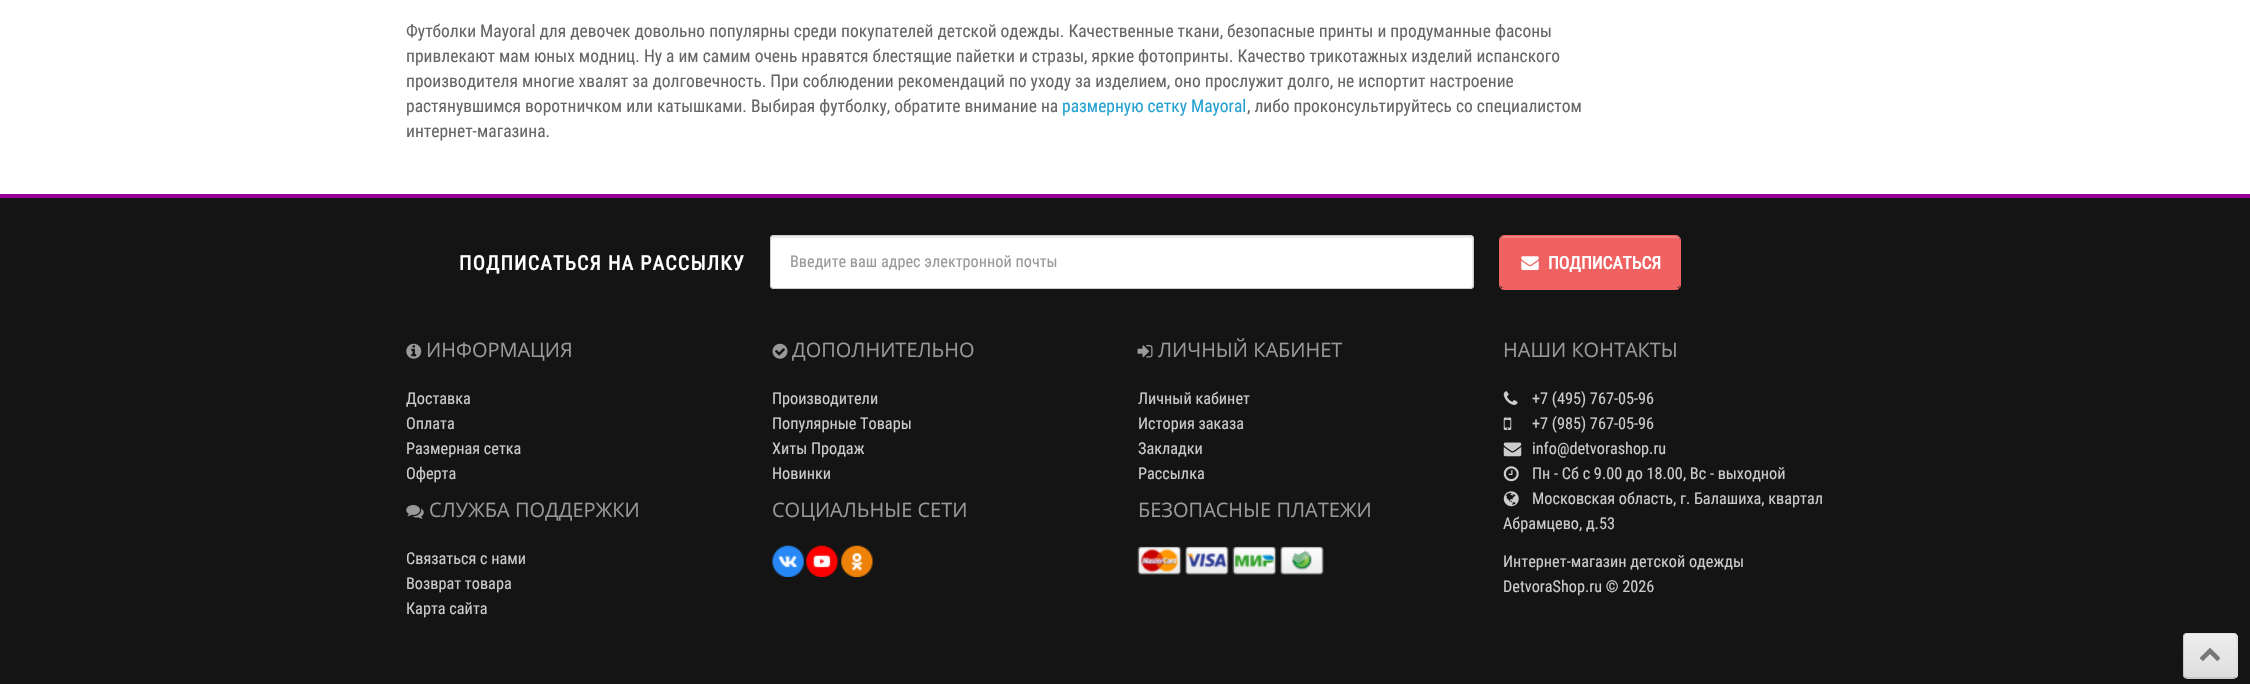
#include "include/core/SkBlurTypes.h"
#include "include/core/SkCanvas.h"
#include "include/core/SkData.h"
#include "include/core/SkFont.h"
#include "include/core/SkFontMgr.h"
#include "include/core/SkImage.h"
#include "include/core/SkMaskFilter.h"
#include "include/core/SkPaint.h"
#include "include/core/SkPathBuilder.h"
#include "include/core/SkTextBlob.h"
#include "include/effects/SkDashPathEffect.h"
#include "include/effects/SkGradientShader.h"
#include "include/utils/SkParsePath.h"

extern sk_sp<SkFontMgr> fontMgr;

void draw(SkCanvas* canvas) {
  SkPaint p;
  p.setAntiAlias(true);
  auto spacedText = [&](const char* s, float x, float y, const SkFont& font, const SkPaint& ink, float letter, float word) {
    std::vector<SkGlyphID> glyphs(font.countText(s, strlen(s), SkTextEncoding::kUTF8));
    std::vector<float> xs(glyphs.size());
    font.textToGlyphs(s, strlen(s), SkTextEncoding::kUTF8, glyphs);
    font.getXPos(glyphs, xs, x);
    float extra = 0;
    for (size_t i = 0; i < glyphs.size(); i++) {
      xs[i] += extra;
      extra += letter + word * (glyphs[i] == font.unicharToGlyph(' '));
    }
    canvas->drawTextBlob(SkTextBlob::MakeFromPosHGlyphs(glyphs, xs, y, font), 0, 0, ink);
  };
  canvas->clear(SK_ColorWHITE);
  p.setColor(SkColorSetRGB(153, 0, 153));
  canvas->drawRect(SkRect::MakeLTRB(0, 194, 2250, 198), p);
  p.setColor(SkColorSetRGB(20, 20, 20));
  canvas->drawRect(SkRect::MakeLTRB(0, 198, 2250, 684), p);
  p.setColor(SK_ColorWHITE);
  canvas->drawRoundRect(SkRect::MakeLTRB(770, 235, 1474, 289), 4, 4, p);
  p.setColor(SkColorSetRGB(236, 236, 236));
  canvas->drawPath(SkPathBuilder().moveTo(774, 238).lineTo(1470, 238).cubicTo(1471, 238, 1472, 239, 1472, 240).lineTo(1472, 288).cubicTo(1472, 287, 1473, 286, 1473, 286).lineTo(1473, 238).cubicTo(1473, 237, 1472, 236, 1470, 236).lineTo(774, 236).cubicTo(772, 236, 771, 237, 771, 238).lineTo(771, 240).cubicTo(771, 239, 772, 238, 774, 238).close().detach(), p);
  p.setStyle(SkPaint::kStroke_Style);
  p.setStrokeWidth(1);
  p.setColor(SkColorSetRGB(204, 204, 204));
  canvas->drawRoundRect(SkRect::MakeLTRB(770.5f, 235.5f, 1473.5f, 288.5f), 3.5f, 3.5f, p);
  p.setStyle(SkPaint::kFill_Style);
  p.setColor(SkColorSetRGB(240, 98, 98));
  canvas->drawPath(SkPathBuilder().moveTo(1504, 236).lineTo(1676, 236).cubicTo(1678, 236, 1680, 238, 1680, 240).lineTo(1680, 285).cubicTo(1680, 286, 1678, 288, 1676, 288).lineTo(1504, 288).cubicTo(1502, 288, 1500, 286, 1500, 285).lineTo(1500, 240).cubicTo(1500, 238, 1502, 236, 1504, 236).close().detach(), p);
  p.setColor(SkColorSetARGB(51, 255, 255, 255));
  canvas->drawPath(SkPathBuilder().moveTo(1504, 238).lineTo(1676, 238).cubicTo(1678, 238, 1680, 239, 1680, 241).cubicTo(1680, 239, 1679, 236, 1676, 236).lineTo(1503, 236).cubicTo(1501, 237, 1500, 239, 1500, 241).cubicTo(1500, 239, 1502, 238, 1504, 238).close().detach(), p);
  p.setStyle(SkPaint::kStroke_Style);
  p.setColor(SkColorSetRGB(240, 98, 98));
  canvas->drawRoundRect(SkRect::MakeLTRB(1499.5f, 235.5f, 1680.5f, 289.5f), 4.5f, 4.5f, p);
  p.setStyle(SkPaint::kFill_Style);
  canvas->drawRect(SkRect::MakeLTRB(1501, 288, 1679, 289), p);
  canvas->drawImageRect(SkImages::DeferredFromEncodedData(SkData::MakeFromFileName("images/1.png")), SkRect::MakeLTRB(1521, 256, 1539, 270), SkSamplingOptions());
  canvas->drawImageRect(SkImages::DeferredFromEncodedData(SkData::MakeFromFileName("images/2.png")), SkRect::MakeLTRB(406, 343, 422, 359), SkSamplingOptions());
  canvas->drawImageRect(SkImages::DeferredFromEncodedData(SkData::MakeFromFileName("images/3.png")), SkRect::MakeLTRB(406, 505, 424, 519), SkSamplingOptions());
  canvas->drawImageRect(SkImages::DeferredFromEncodedData(SkData::MakeFromFileName("images/4.png")), SkRect::MakeLTRB(772, 343, 788, 359), SkSamplingOptions());
  canvas->drawImageRect(SkImages::DeferredFromEncodedData(SkData::MakeFromFileName("images/5.png")), SkRect::MakeLTRB(772, 545, 804, 577), SkSamplingOptions());
  canvas->drawImageRect(SkImages::DeferredFromEncodedData(SkData::MakeFromFileName("images/6.png")), SkRect::MakeLTRB(806, 545, 838, 577), SkSamplingOptions());
  canvas->drawImageRect(SkImages::DeferredFromEncodedData(SkData::MakeFromFileName("images/7.png")), SkRect::MakeLTRB(841, 545, 873, 577), SkSamplingOptions());
  canvas->drawImageRect(SkImages::DeferredFromEncodedData(SkData::MakeFromFileName("images/8.png")), SkRect::MakeLTRB(1137, 345, 1153, 358), SkSamplingOptions());
  canvas->drawImageRect(SkImages::DeferredFromEncodedData(SkData::MakeFromFileName("images/9.png")), SkRect::MakeLTRB(1137, 546, 1182, 575), SkSamplingOptions());
  canvas->drawImageRect(SkImages::DeferredFromEncodedData(SkData::MakeFromFileName("images/10.png")), SkRect::MakeLTRB(1185, 546, 1229, 575), SkSamplingOptions());
  canvas->drawImageRect(SkImages::DeferredFromEncodedData(SkData::MakeFromFileName("images/11.png")), SkRect::MakeLTRB(1232, 546, 1277, 575), SkSamplingOptions());
  canvas->drawImageRect(SkImages::DeferredFromEncodedData(SkData::MakeFromFileName("images/12.png")), SkRect::MakeLTRB(1280, 546, 1324, 575), SkSamplingOptions());
  canvas->drawImageRect(SkImages::DeferredFromEncodedData(SkData::MakeFromFileName("images/13.png")), SkRect::MakeLTRB(1503, 391, 1518, 405), SkSamplingOptions());
  canvas->drawImageRect(SkImages::DeferredFromEncodedData(SkData::MakeFromFileName("images/14.png")), SkRect::MakeLTRB(1503, 417, 1512, 430), SkSamplingOptions());
  canvas->drawImageRect(SkImages::DeferredFromEncodedData(SkData::MakeFromFileName("images/15.png")), SkRect::MakeLTRB(1503, 442, 1522, 457), SkSamplingOptions());
  canvas->drawImageRect(SkImages::DeferredFromEncodedData(SkData::MakeFromFileName("images/16.png")), SkRect::MakeLTRB(1503, 466, 1519, 482), SkSamplingOptions());
  canvas->drawImageRect(SkImages::DeferredFromEncodedData(SkData::MakeFromFileName("images/17.png")), SkRect::MakeLTRB(1503, 491, 1519, 507), SkSamplingOptions());
  p.setColor(SkColorSetRGB(231, 231, 231));
  canvas->drawRoundRect(SkRect::MakeLTRB(2183, 633, 2238, 679), 5, 5, p);
  canvas->save();
  canvas->clipPath(SkPathBuilder().moveTo(2188, 633).lineTo(2233, 633).cubicTo(2236, 633, 2238, 635, 2238, 638).lineTo(2238, 674).cubicTo(2238, 677, 2236, 679, 2233, 679).lineTo(2188, 679).cubicTo(2185, 679, 2183, 677, 2183, 674).lineTo(2183, 638).cubicTo(2183, 635, 2185, 633, 2188, 633).close().detach(), true);
  {
    const SkColor colors[] = {SkColorSetRGB(238, 238, 238), SkColorSetRGB(221, 221, 221)};
    const float stops[] = {0, 1};
    const SkPoint ends[] = {{2210, 634}, {2210, 678}};
    p.setShader(SkGradientShader::MakeLinear(ends, colors, stops, 2, SkTileMode::kClamp));
    p.setAlpha(255);
  }
  canvas->drawRect(SkRect::MakeLTRB(2183, 634, 2238, 678), p);
  canvas->restore();
  p.setShader(nullptr);
  p.setColor(SkColorSetRGB(241, 241, 241));
  canvas->drawPath(SkPathBuilder().moveTo(2188, 635).lineTo(2232, 635).cubicTo(2235, 635, 2236, 637, 2236, 639).cubicTo(2236, 633, 2230, 634, 2225, 634).lineTo(2195, 634).cubicTo(2190, 634, 2184, 633, 2184, 639).cubicTo(2184, 637, 2185, 635, 2188, 635).close().detach(), p);
  canvas->save();
  canvas->clipRect(SkRect::MakeLTRB(2183, 633, 2238, 679));
  p.setStyle(SkPaint::kStroke_Style);
  p.setStrokeWidth(1.2f);
  p.setColor(SkColorSetRGB(221, 221, 221));
  canvas->drawPath(SkPathBuilder().moveTo(2184.5f, 634.5f).cubicTo(2187, 632, 2193, 633, 2195, 633).lineTo(2225, 633).cubicTo(2236.5f, 633, 2237, 632, 2237, 643.5f).lineTo(2237, 667.5f).cubicTo(2237, 670, 2238, 674.5f, 2235.5f, 677).detach(), p);
  canvas->restore();
  p.setColor(SkColorSetRGB(179, 179, 179));
  canvas->drawPath(SkPathBuilder().moveTo(2235.5f, 677).cubicTo(2235, 677.5f, 2233.5f, 678, 2232.5f, 678).lineTo(2187.5f, 678).cubicTo(2186.5f, 678, 2185, 677.5f, 2184.5f, 677).detach(), p);
  canvas->save();
  canvas->clipRect(SkRect::MakeLTRB(2183, 633, 2238, 679));
  p.setColor(SkColorSetRGB(183, 183, 183));
  canvas->drawPath(SkPathBuilder().moveTo(2184.5f, 677).cubicTo(2183.5f, 676, 2183, 675, 2183, 674).lineTo(2183, 637.5f).cubicTo(2183, 636.5f, 2183.5f, 635, 2184.5f, 634.5f).detach(), p);
  canvas->restore();
  canvas->drawImageRect(SkImages::DeferredFromEncodedData(SkData::MakeFromFileName("images/18.png")), SkRect::MakeLTRB(2200, 648, 2220, 661), SkSamplingOptions());
  SkFont font1(fontMgr->matchFamilyStyle("Roboto Condensed", SkFontStyle::Normal()), 17.5f);
  font1.setSubpixel(true);
  p.setStyle(SkPaint::kFill_Style);
  p.setColor(SkColorSetRGB(102, 102, 102));
  canvas->drawString("Футболки Mayoral для девочек довольно популярны среди покупателей детской одежды. Качественные ткани, безопасные принты и продуманные фасоны", 406, 37, font1, p);
  canvas->drawString("привлекают мам юных модниц. Ну а им самим очень нравятся блестящие пайетки и стразы, яркие фотопринты. Качество трикотажных изделий испанского", 406, 62, font1, p);
  canvas->drawString("производителя многие хвалят за долговечность. При соблюдении рекомендаций по уходу за изделием, оно прослужит долго, не испортит настроение", 406, 87, font1, p);
  canvas->drawString("растянувшимся воротничком или катышками. Выбирая футболку, обратите внимание на", 406, 112, font1, p);
  p.setColor(SkColorSetRGB(35, 161, 209));
  canvas->drawString("размерную сетку Mayoral", 1062, 112, font1, p);
  p.setColor(SkColorSetRGB(102, 102, 102));
  canvas->drawString(", либо проконсультируйтесь со специалистом", 1247, 112, font1, p);
  canvas->drawString("интернет-магазина.", 406, 137, font1, p);
  SkFont font2(fontMgr->matchFamilyStyle("Roboto Condensed", SkFontStyle::Bold()), 20);
  font2.setSubpixel(true);
  p.setColor(SK_ColorWHITE);
  spacedText("ПОДПИСАТЬСЯ НА РАССЫЛКУ", 459, 270, font2, p, 1.25f, 0);
  SkFont font3(fontMgr->matchFamilyStyle("Roboto Condensed", SkFontStyle::Normal()), 16.25f);
  font3.setSubpixel(true);
  p.setColor(SkColorSetRGB(153, 153, 153));
  canvas->drawString("Введите ваш адрес электронной почты", 790, 267, font3, p);
  SkFont font4(fontMgr->matchFamilyStyle("Roboto Condensed", SkFontStyle::Bold()), 17.5f);
  font4.setSubpixel(true);
  p.setColor(SK_ColorWHITE);
  canvas->drawString("ПОДПИСАТЬСЯ", 1548, 269, font4, p);
  SkFont font5(fontMgr->matchFamilyStyle("Open Sans", SkFontStyle::Normal()), 20);
  font5.setSubpixel(true);
  p.setColor(SkColorSetRGB(153, 153, 153));
  canvas->drawString("ИНФОРМАЦИЯ", 426, 357, font5, p);
  p.setColor(SkColorSetRGB(204, 204, 204));
  canvas->drawString("Доставка", 406, 404, font3, p);
  canvas->drawString("Оплата", 406, 429, font3, p);
  canvas->drawString("Размерная сетка", 406, 454, font3, p);
  canvas->drawString("Оферта", 406, 479, font3, p);
  p.setColor(SkColorSetRGB(153, 153, 153));
  canvas->drawString("СЛУЖБА ПОДДЕРЖКИ", 429, 517, font5, p);
  p.setColor(SkColorSetRGB(204, 204, 204));
  canvas->drawString("Связаться с нами", 406, 564, font3, p);
  canvas->drawString("Возврат товара", 406, 589, font3, p);
  canvas->drawString("Карта сайта", 406, 614, font3, p);
  p.setColor(SkColorSetRGB(153, 153, 153));
  canvas->drawString("ДОПОЛНИТЕЛЬНО", 792, 357, font5, p);
  p.setColor(SkColorSetRGB(204, 204, 204));
  canvas->drawString("Производители", 772, 404, font3, p);
  canvas->drawString("Популярные Товары", 772, 429, font3, p);
  canvas->drawString("Хиты Продаж", 772, 454, font3, p);
  canvas->drawString("Новинки", 772, 479, font3, p);
  p.setColor(SkColorSetRGB(153, 153, 153));
  canvas->drawString("СОЦИАЛЬНЫЕ СЕТИ", 772, 517, font5, p);
  canvas->drawString("ЛИЧНЫЙ КАБИНЕТ", 1158, 357, font5, p);
  p.setColor(SkColorSetRGB(204, 204, 204));
  canvas->drawString("Личный кабинет", 1138, 404, font3, p);
  canvas->drawString("История заказа", 1138, 429, font3, p);
  canvas->drawString("Закладки", 1138, 454, font3, p);
  canvas->drawString("Рассылка", 1138, 479, font3, p);
  p.setColor(SkColorSetRGB(153, 153, 153));
  canvas->drawString("БЕЗОПАСНЫЕ ПЛАТЕЖИ", 1138, 517, font5, p);
  canvas->drawString("НАШИ КОНТАКТЫ", 1503, 357, font5, p);
  p.setColor(SkColorSetRGB(204, 204, 204));
  canvas->drawString("+7 (495) 767-05-96", 1532, 404, font3, p);
  canvas->drawString("+7 (985) 767-05-96", 1532, 429, font3, p);
  canvas->drawString("info@detvorashop.ru", 1532, 454, font3, p);
  canvas->drawString("Пн - Сб с 9.00 до 18.00, Вс - выходной", 1532, 479, font3, p);
  canvas->drawString("Московская область, г. Балашиха, квартал", 1532, 504, font3, p);
  canvas->drawString("Абрамцево, д.53", 1503, 529, font3, p);
  canvas->drawString("Интернет-магазин детской одежды", 1503, 567, font3, p);
  canvas->drawString("DetvoraShop.ru © 2026", 1503, 592, font3, p);
}
